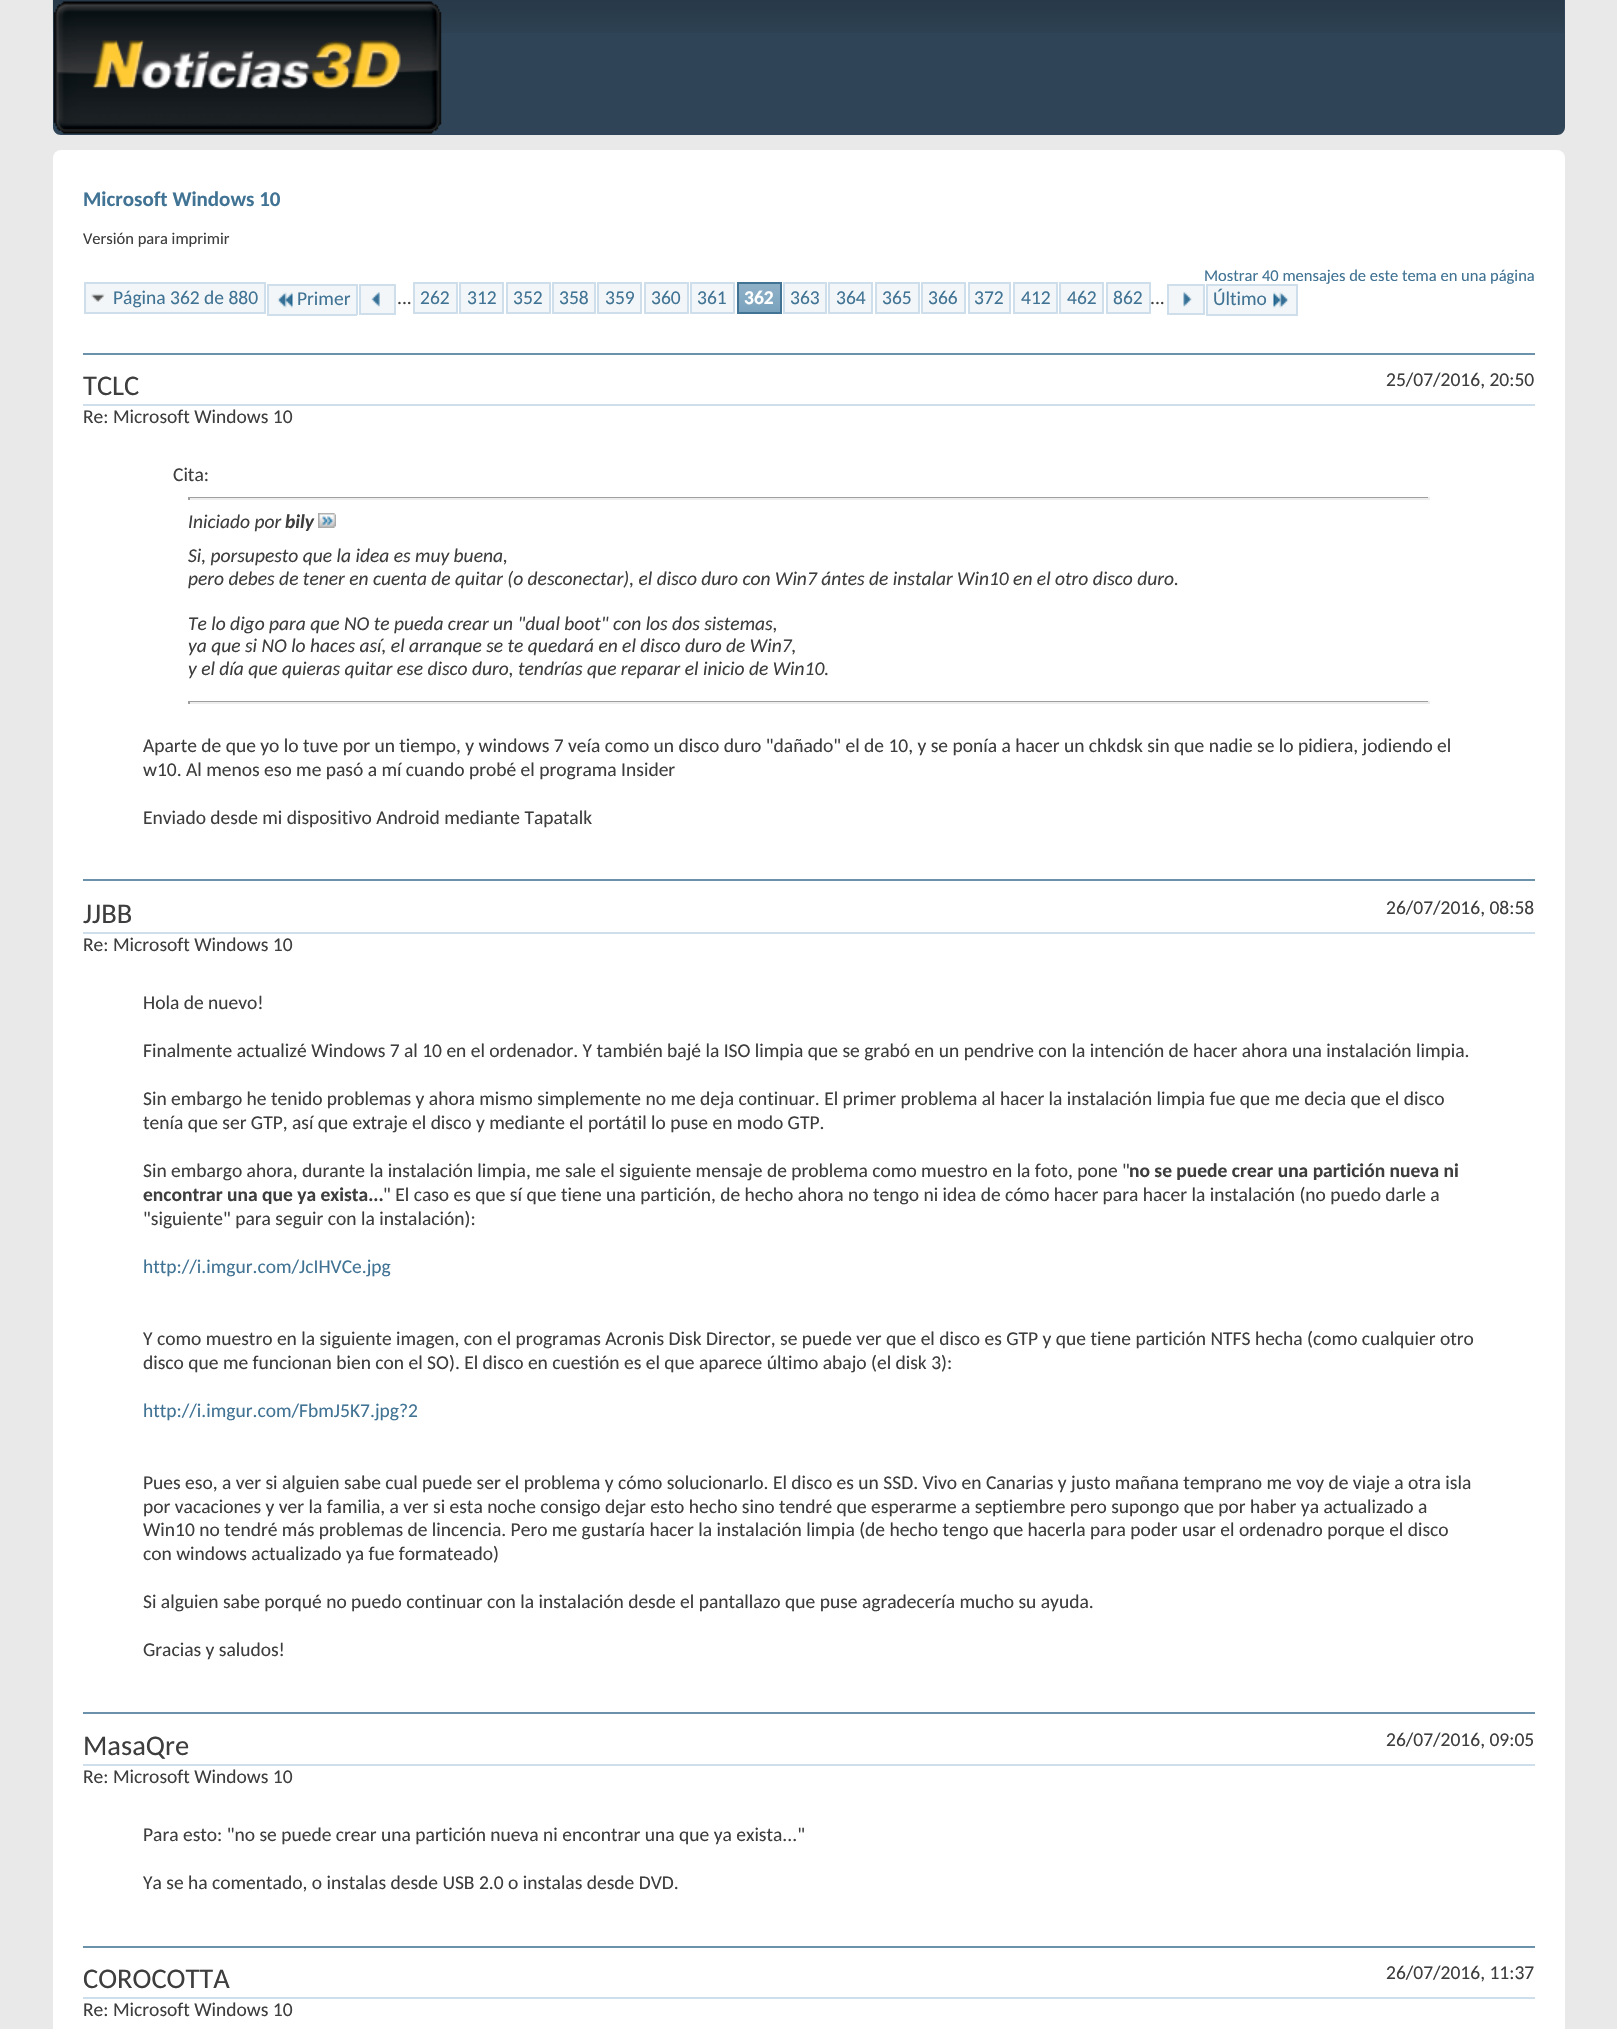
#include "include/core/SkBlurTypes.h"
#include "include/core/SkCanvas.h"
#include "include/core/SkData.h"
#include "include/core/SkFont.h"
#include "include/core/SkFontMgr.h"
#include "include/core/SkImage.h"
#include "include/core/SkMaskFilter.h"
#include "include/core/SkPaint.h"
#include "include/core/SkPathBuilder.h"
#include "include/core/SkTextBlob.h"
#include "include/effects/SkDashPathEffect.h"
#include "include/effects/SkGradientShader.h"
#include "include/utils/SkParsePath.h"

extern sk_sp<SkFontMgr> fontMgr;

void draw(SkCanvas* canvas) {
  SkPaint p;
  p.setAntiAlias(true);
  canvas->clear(SkColorSetRGB(233, 233, 233));
  p.setColor(SkColorSetRGB(47, 68, 86));
  canvas->drawPath(SkPathBuilder().moveTo(53, 0).lineTo(1565, 0).lineTo(1565, 127).cubicTo(1565, 131.5f, 1561.5f, 135, 1557, 135).lineTo(61, 135).cubicTo(56.5f, 135, 53, 131.5f, 53, 127).close().detach(), p);
  canvas->drawImageRect(SkImages::DeferredFromEncodedData(SkData::MakeFromFileName("images/1.png")), SkRect::MakeLTRB(52, 0, 1564, 33), SkSamplingOptions());
  canvas->drawImageRect(SkImages::DeferredFromEncodedData(SkData::MakeFromFileName("images/2.png")), SkRect::MakeLTRB(53, 1, 442, 134), SkSamplingOptions());
  p.setColor(SK_ColorWHITE);
  canvas->drawRoundRect(SkRect::MakeLTRB(53, 150, 1565, 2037), 8, 8, p);
  p.setColor(SkColorSetRGB(242, 246, 248));
  canvas->drawRect(SkRect::MakeLTRB(86, 284, 264, 312), p);
  canvas->drawImageRect(SkImages::DeferredFromEncodedData(SkData::MakeFromFileName("images/3.png")), SkRect::MakeLTRB(91, 293, 105, 303), SkSamplingOptions());
  p.setStyle(SkPaint::kStroke_Style);
  p.setStrokeWidth(2);
  p.setColor(SkColorSetRGB(206, 223, 235));
  canvas->drawRect(SkRect::MakeLTRB(85, 283, 265, 313), p);
  p.setStyle(SkPaint::kFill_Style);
  p.setColor(SkColorSetRGB(242, 246, 248));
  canvas->drawRect(SkRect::MakeLTRB(269, 286, 356, 314), p);
  canvas->drawImageRect(SkImages::DeferredFromEncodedData(SkData::MakeFromFileName("images/4.png")), SkRect::MakeLTRB(277, 292, 293, 308), SkSamplingOptions());
  p.setColor(SkColorSetRGB(206, 223, 235));
  canvas->drawRect(SkRect::MakeLTRB(267, 284, 357, 286), p);
  canvas->drawRect(SkRect::MakeLTRB(267, 314, 297, 316), p);
  canvas->drawRect(SkRect::MakeLTRB(267, 284, 269, 315), p);
  canvas->drawRect(SkRect::MakeLTRB(356, 284, 358, 315), p);
  canvas->drawRect(SkRect::MakeLTRB(297, 314, 357, 316), p);
  p.setColor(SkColorSetRGB(242, 246, 248));
  canvas->drawRect(SkRect::MakeLTRB(360, 285, 395, 314), p);
  p.setStyle(SkPaint::kStroke_Style);
  p.setColor(SkColorSetRGB(206, 223, 235));
  canvas->drawRect(SkRect::MakeLTRB(360, 285, 395, 314), p);
  canvas->drawImageRect(SkImages::DeferredFromEncodedData(SkData::MakeFromFileName("images/5.png")), SkRect::MakeLTRB(371, 292, 380, 307), SkSamplingOptions());
  p.setStyle(SkPaint::kFill_Style);
  p.setColor(SkColorSetRGB(242, 246, 248));
  canvas->drawRect(SkRect::MakeLTRB(414, 283, 457, 313), p);
  p.setStyle(SkPaint::kStroke_Style);
  p.setColor(SkColorSetRGB(206, 223, 235));
  canvas->drawRect(SkRect::MakeLTRB(414, 283, 457, 313), p);
  p.setStyle(SkPaint::kFill_Style);
  p.setColor(SkColorSetRGB(242, 246, 248));
  canvas->drawRect(SkRect::MakeLTRB(460, 283, 503, 313), p);
  p.setStyle(SkPaint::kStroke_Style);
  p.setColor(SkColorSetRGB(206, 223, 235));
  canvas->drawRect(SkRect::MakeLTRB(460, 283, 503, 313), p);
  p.setStyle(SkPaint::kFill_Style);
  p.setColor(SkColorSetRGB(242, 246, 248));
  canvas->drawRect(SkRect::MakeLTRB(507, 283, 550, 313), p);
  p.setStyle(SkPaint::kStroke_Style);
  p.setColor(SkColorSetRGB(206, 223, 235));
  canvas->drawRect(SkRect::MakeLTRB(507, 283, 550, 313), p);
  p.setStyle(SkPaint::kFill_Style);
  p.setColor(SkColorSetRGB(242, 246, 248));
  canvas->drawRect(SkRect::MakeLTRB(553, 283, 595, 313), p);
  p.setStyle(SkPaint::kStroke_Style);
  p.setColor(SkColorSetRGB(206, 223, 235));
  canvas->drawRect(SkRect::MakeLTRB(553, 283, 595, 313), p);
  p.setStyle(SkPaint::kFill_Style);
  p.setColor(SkColorSetRGB(242, 246, 248));
  canvas->drawRect(SkRect::MakeLTRB(598, 283, 641, 313), p);
  p.setStyle(SkPaint::kStroke_Style);
  p.setColor(SkColorSetRGB(206, 223, 235));
  canvas->drawRect(SkRect::MakeLTRB(598, 283, 641, 313), p);
  p.setStyle(SkPaint::kFill_Style);
  p.setColor(SkColorSetRGB(242, 246, 248));
  canvas->drawRect(SkRect::MakeLTRB(645, 283, 688, 313), p);
  p.setStyle(SkPaint::kStroke_Style);
  p.setColor(SkColorSetRGB(206, 223, 235));
  canvas->drawRect(SkRect::MakeLTRB(645, 283, 688, 313), p);
  p.setStyle(SkPaint::kFill_Style);
  p.setColor(SkColorSetRGB(242, 246, 248));
  canvas->drawRect(SkRect::MakeLTRB(691, 283, 734, 313), p);
  p.setStyle(SkPaint::kStroke_Style);
  p.setColor(SkColorSetRGB(206, 223, 235));
  canvas->drawRect(SkRect::MakeLTRB(691, 283, 734, 313), p);
  p.setStyle(SkPaint::kFill_Style);
  p.setColor(SkColorSetRGB(117, 159, 187));
  canvas->drawRect(SkRect::MakeLTRB(739, 284, 780, 312), p);
  canvas->drawImageRect(SkImages::DeferredFromEncodedData(SkData::MakeFromFileName("images/6.png")), SkRect::MakeLTRB(739, 284, 780, 312), SkSamplingOptions());
  p.setStyle(SkPaint::kStroke_Style);
  p.setColor(SkColorSetRGB(65, 115, 148));
  canvas->drawRect(SkRect::MakeLTRB(738, 283, 781, 313), p);
  p.setStyle(SkPaint::kFill_Style);
  p.setColor(SkColorSetRGB(242, 246, 248));
  canvas->drawRect(SkRect::MakeLTRB(784, 283, 826, 313), p);
  p.setStyle(SkPaint::kStroke_Style);
  p.setColor(SkColorSetRGB(206, 223, 235));
  canvas->drawRect(SkRect::MakeLTRB(784, 283, 826, 313), p);
  p.setStyle(SkPaint::kFill_Style);
  p.setColor(SkColorSetRGB(242, 246, 248));
  canvas->drawRect(SkRect::MakeLTRB(829, 283, 872, 313), p);
  p.setStyle(SkPaint::kStroke_Style);
  p.setColor(SkColorSetRGB(206, 223, 235));
  canvas->drawRect(SkRect::MakeLTRB(829, 283, 872, 313), p);
  p.setStyle(SkPaint::kFill_Style);
  p.setColor(SkColorSetRGB(242, 246, 248));
  canvas->drawRect(SkRect::MakeLTRB(876, 283, 919, 313), p);
  p.setStyle(SkPaint::kStroke_Style);
  p.setColor(SkColorSetRGB(206, 223, 235));
  canvas->drawRect(SkRect::MakeLTRB(876, 283, 919, 313), p);
  p.setStyle(SkPaint::kFill_Style);
  p.setColor(SkColorSetRGB(242, 246, 248));
  canvas->drawRect(SkRect::MakeLTRB(922, 283, 965, 313), p);
  p.setStyle(SkPaint::kStroke_Style);
  p.setColor(SkColorSetRGB(206, 223, 235));
  canvas->drawRect(SkRect::MakeLTRB(922, 283, 965, 313), p);
  p.setStyle(SkPaint::kFill_Style);
  p.setColor(SkColorSetRGB(242, 246, 248));
  canvas->drawRect(SkRect::MakeLTRB(969, 283, 1010, 313), p);
  p.setStyle(SkPaint::kStroke_Style);
  p.setColor(SkColorSetRGB(206, 223, 235));
  canvas->drawRect(SkRect::MakeLTRB(969, 283, 1010, 313), p);
  p.setStyle(SkPaint::kFill_Style);
  p.setColor(SkColorSetRGB(242, 246, 248));
  canvas->drawRect(SkRect::MakeLTRB(1014, 283, 1057, 313), p);
  p.setStyle(SkPaint::kStroke_Style);
  p.setColor(SkColorSetRGB(206, 223, 235));
  canvas->drawRect(SkRect::MakeLTRB(1014, 283, 1057, 313), p);
  p.setStyle(SkPaint::kFill_Style);
  p.setColor(SkColorSetRGB(242, 246, 248));
  canvas->drawRect(SkRect::MakeLTRB(1060, 283, 1103, 313), p);
  p.setStyle(SkPaint::kStroke_Style);
  p.setColor(SkColorSetRGB(206, 223, 235));
  canvas->drawRect(SkRect::MakeLTRB(1060, 283, 1103, 313), p);
  p.setStyle(SkPaint::kFill_Style);
  p.setColor(SkColorSetRGB(242, 246, 248));
  canvas->drawRect(SkRect::MakeLTRB(1107, 283, 1150, 313), p);
  p.setStyle(SkPaint::kStroke_Style);
  p.setColor(SkColorSetRGB(206, 223, 235));
  canvas->drawRect(SkRect::MakeLTRB(1107, 283, 1150, 313), p);
  p.setStyle(SkPaint::kFill_Style);
  p.setColor(SkColorSetRGB(242, 246, 248));
  canvas->drawRect(SkRect::MakeLTRB(1168, 285, 1204, 314), p);
  p.setStyle(SkPaint::kStroke_Style);
  p.setColor(SkColorSetRGB(206, 223, 235));
  canvas->drawRect(SkRect::MakeLTRB(1168, 285, 1204, 314), p);
  canvas->drawImageRect(SkImages::DeferredFromEncodedData(SkData::MakeFromFileName("images/7.png")), SkRect::MakeLTRB(1183, 292, 1192, 307), SkSamplingOptions());
  p.setStyle(SkPaint::kFill_Style);
  p.setColor(SkColorSetRGB(242, 246, 248));
  canvas->drawRect(SkRect::MakeLTRB(1208, 286, 1296, 314), p);
  p.setColor(SkColorSetRGB(206, 223, 235));
  canvas->drawRect(SkRect::MakeLTRB(1206, 284, 1298, 286), p);
  canvas->drawRect(SkRect::MakeLTRB(1206, 314, 1268, 316), p);
  canvas->drawRect(SkRect::MakeLTRB(1206, 284, 1208, 315), p);
  canvas->drawRect(SkRect::MakeLTRB(1296, 284, 1298, 315), p);
  canvas->drawRect(SkRect::MakeLTRB(1268, 314, 1298, 316), p);
  canvas->drawImageRect(SkImages::DeferredFromEncodedData(SkData::MakeFromFileName("images/8.png")), SkRect::MakeLTRB(1273, 292, 1289, 308), SkSamplingOptions());
  p.setColor(SkColorSetRGB(107, 145, 171));
  canvas->drawRect(SkRect::MakeLTRB(83, 353, 1535, 355), p);
  p.setColor(SkColorSetRGB(206, 223, 235));
  canvas->drawRect(SkRect::MakeLTRB(83, 404, 1535, 406), p);
  p.setColor(SkColorSetRGB(159, 159, 159));
  canvas->drawRect(SkRect::MakeLTRB(188, 497, 1430, 498), p);
  p.setColor(SkColorSetRGB(238, 238, 238));
  canvas->drawRect(SkRect::MakeLTRB(1428, 497, 1430, 500), p);
  canvas->drawRect(SkRect::MakeLTRB(188, 498, 1430, 500), p);
  p.setColor(SkColorSetRGB(159, 159, 159));
  canvas->drawRect(SkRect::MakeLTRB(188, 497, 190, 500), p);
  canvas->drawImageRect(SkImages::DeferredFromEncodedData(SkData::MakeFromFileName("images/9.png")), SkRect::MakeLTRB(318, 513, 336, 528), SkSamplingOptions());
  canvas->drawRect(SkRect::MakeLTRB(188, 701, 1430, 702), p);
  p.setColor(SkColorSetRGB(238, 238, 238));
  canvas->drawRect(SkRect::MakeLTRB(1428, 701, 1430, 704), p);
  canvas->drawRect(SkRect::MakeLTRB(188, 702, 1430, 704), p);
  p.setColor(SkColorSetRGB(159, 159, 159));
  canvas->drawRect(SkRect::MakeLTRB(188, 701, 190, 704), p);
  p.setColor(SkColorSetRGB(107, 145, 171));
  canvas->drawRect(SkRect::MakeLTRB(83, 879, 1535, 881), p);
  p.setColor(SkColorSetRGB(206, 223, 235));
  canvas->drawRect(SkRect::MakeLTRB(83, 932, 1535, 934), p);
  p.setColor(SkColorSetRGB(107, 145, 171));
  canvas->drawRect(SkRect::MakeLTRB(83, 1712, 1535, 1714), p);
  p.setColor(SkColorSetRGB(206, 223, 235));
  canvas->drawRect(SkRect::MakeLTRB(83, 1764, 1535, 1766), p);
  p.setColor(SkColorSetRGB(107, 145, 171));
  canvas->drawRect(SkRect::MakeLTRB(83, 1946, 1535, 1948), p);
  p.setColor(SkColorSetRGB(206, 223, 235));
  canvas->drawRect(SkRect::MakeLTRB(83, 1997, 1535, 1999), p);
  SkFont font1(fontMgr->matchFamilyStyle("Carlito", SkFontStyle::Bold()), 21);
  font1.setSubpixel(true);
  p.setColor(SkColorSetRGB(65, 115, 148));
  canvas->drawString("Microsoft Windows 10", 83, 206, font1, p);
  SkFont font2(fontMgr->matchFamilyStyle("Carlito", SkFontStyle::Normal()), 16.5f);
  font2.setSubpixel(true);
  p.setColor(SkColorSetRGB(62, 62, 62));
  canvas->drawString("Versión para imprimir", 83, 244, font2, p);
  p.setColor(SkColorSetRGB(65, 115, 148));
  canvas->drawString("Mostrar 40 mensajes de este tema en una página", 1204, 281, font2, p);
  SkFont font3(fontMgr->matchFamilyStyle("Carlito", SkFontStyle::Normal()), 19.5f);
  font3.setSubpixel(true);
  canvas->drawString("Página 362 de 880", 113, 304, font3, p);
  canvas->drawString("Primer", 297, 305, font3, p);
  p.setColor(SkColorSetRGB(62, 62, 62));
  canvas->drawString("...", 397, 304, font3, p);
  p.setColor(SkColorSetRGB(65, 115, 148));
  canvas->drawString("262", 420, 304, font3, p);
  canvas->drawString("312", 467, 304, font3, p);
  canvas->drawString("352", 513, 304, font3, p);
  canvas->drawString("358", 559, 304, font3, p);
  canvas->drawString("359", 605, 304, font3, p);
  canvas->drawString("360", 651, 304, font3, p);
  canvas->drawString("361", 697, 304, font3, p);
  SkFont font4(fontMgr->matchFamilyStyle("Carlito", SkFontStyle::Bold()), 19.5f);
  font4.setSubpixel(true);
  p.setColor(SK_ColorWHITE);
  canvas->drawString("362", 744, 304, font4, p);
  p.setColor(SkColorSetRGB(65, 115, 148));
  canvas->drawString("363", 790, 304, font3, p);
  canvas->drawString("364", 836, 304, font3, p);
  canvas->drawString("365", 882, 304, font3, p);
  canvas->drawString("366", 928, 304, font3, p);
  canvas->drawString("372", 974, 304, font3, p);
  canvas->drawString("412", 1021, 304, font3, p);
  canvas->drawString("462", 1067, 304, font3, p);
  canvas->drawString("862", 1113, 304, font3, p);
  p.setColor(SkColorSetRGB(62, 62, 62));
  canvas->drawString("...", 1150, 304, font3, p);
  p.setColor(SkColorSetRGB(65, 115, 148));
  canvas->drawString("Último", 1213, 305, font3, p);
  SkFont font5(fontMgr->matchFamilyStyle("Carlito", SkFontStyle::Normal()), 28.5f);
  font5.setSubpixel(true);
  p.setColor(SkColorSetRGB(62, 62, 62));
  canvas->drawString("TCLC", 83, 395, font5, p);
  canvas->drawString("25/07/2016, 20:50", 1386, 386, font3, p);
  canvas->drawString("Re: Microsoft Windows 10", 83, 423, font3, p);
  canvas->drawString("Cita:", 173, 481, font3, p);
  SkFont font6(fontMgr->matchFamilyStyle("Carlito", SkFontStyle::Italic()), 19.5f);
  font6.setSubpixel(true);
  canvas->drawString("Iniciado por", 188, 528, font6, p);
  SkFont font7(fontMgr->matchFamilyStyle("Carlito", SkFontStyle::BoldItalic()), 19.5f);
  font7.setSubpixel(true);
  canvas->drawString("bily", 285, 528, font7, p);
  canvas->drawString("Si, porsupesto que la idea es muy buena,", 188, 562, font6, p);
  canvas->drawString("pero debes de tener en cuenta de quitar (o desconectar), el disco duro con Win7 ántes de instalar Win10 en el otro disco duro.", 188, 585, font6, p);
  canvas->drawString("Te lo digo para que NO te pueda crear un \"dual boot\" con los dos sistemas,", 188, 630, font6, p);
  canvas->drawString("ya que si NO lo haces así, el arranque se te quedará en el disco duro de Win7,", 188, 652, font6, p);
  canvas->drawString("y el día que quieras quitar ese disco duro, tendrías que reparar el inicio de Win10.", 188, 675, font6, p);
  canvas->drawString("Aparte de que yo lo tuve por un tiempo, y windows 7 veía como un disco duro \"dañado\" el de 10, y se ponía a hacer un chkdsk sin que nadie se lo pidiera, jodiendo el", 143, 752, font3, p);
  canvas->drawString("w10. Al menos eso me pasó a mí cuando probé el programa Insider", 143, 776, font3, p);
  canvas->drawString("Enviado desde mi dispositivo Android mediante Tapatalk", 143, 824, font3, p);
  canvas->drawString("JJBB", 83, 923, font5, p);
  canvas->drawString("26/07/2016, 08:58", 1386, 914, font3, p);
  canvas->drawString("Re: Microsoft Windows 10", 83, 951, font3, p);
  canvas->drawString("Hola de nuevo!", 143, 1009, font3, p);
  canvas->drawString("Finalmente actualizé Windows 7 al 10 en el ordenador. Y también bajé la ISO limpia que se grabó en un pendrive con la intención de hacer ahora una instalación limpia.", 143, 1057, font3, p);
  canvas->drawString("Sin embargo he tenido problemas y ahora mismo simplemente no me deja continuar. El primer problema al hacer la instalación limpia fue que me decia que el disco", 143, 1105, font3, p);
  canvas->drawString("tenía que ser GTP, así que extraje el disco y mediante el portátil lo puse en modo GTP.", 143, 1129, font3, p);
  canvas->drawString("Sin embargo ahora, durante la instalación limpia, me sale el siguiente mensaje de problema como muestro en la foto, pone \"", 143, 1177, font3, p);
  canvas->drawString("no se puede crear una partición nueva ni", 1129, 1177, font4, p);
  canvas->drawString("encontrar una que ya exista...", 143, 1201, font4, p);
  canvas->drawString("\" El caso es que sí que tiene una partición, de hecho ahora no tengo ni idea de cómo hacer para hacer la instalación (no puedo darle a", 383, 1201, font3, p);
  canvas->drawString("\"siguiente\" para seguir con la instalación):", 143, 1225, font3, p);
  p.setColor(SkColorSetRGB(65, 115, 148));
  canvas->drawString("http://i.imgur.com/JcIHVCe.jpg", 143, 1273, font3, p);
  p.setColor(SkColorSetRGB(62, 62, 62));
  canvas->drawString("Y como muestro en la siguiente imagen, con el programas Acronis Disk Director, se puede ver que el disco es GTP y que tiene partición NTFS hecha (como cualquier otro", 143, 1345, font3, p);
  canvas->drawString("disco que me funcionan bien con el SO). El disco en cuestión es el que aparece último abajo (el disk 3):", 143, 1369, font3, p);
  p.setColor(SkColorSetRGB(65, 115, 148));
  canvas->drawString("http://i.imgur.com/FbmJ5K7.jpg?2", 143, 1417, font3, p);
  p.setColor(SkColorSetRGB(62, 62, 62));
  canvas->drawString("Pues eso, a ver si alguien sabe cual puede ser el problema y cómo solucionarlo. El disco es un SSD. Vivo en Canarias y justo mañana temprano me voy de viaje a otra isla", 143, 1489, font3, p);
  canvas->drawString("por vacaciones y ver la familia, a ver si esta noche consigo dejar esto hecho sino tendré que esperarme a septiembre pero supongo que por haber ya actualizado a", 143, 1513, font3, p);
  canvas->drawString("Win10 no tendré más problemas de lincencia. Pero me gustaría hacer la instalación limpia (de hecho tengo que hacerla para poder usar el ordenadro porque el disco", 143, 1536, font3, p);
  canvas->drawString("con windows actualizado ya fue formateado)", 143, 1560, font3, p);
  canvas->drawString("Si alguien sabe porqué no puedo continuar con la instalación desde el pantallazo que puse agradecería mucho su ayuda.", 143, 1608, font3, p);
  canvas->drawString("Gracias y saludos!", 143, 1656, font3, p);
  canvas->drawString("MasaQre", 83, 1755, font5, p);
  canvas->drawString("26/07/2016, 09:05", 1386, 1746, font3, p);
  canvas->drawString("Re: Microsoft Windows 10", 83, 1783, font3, p);
  canvas->drawString("Para esto: \"no se puede crear una partición nueva ni encontrar una que ya exista...\"", 143, 1841, font3, p);
  canvas->drawString("Ya se ha comentado, o instalas desde USB 2.0 o instalas desde DVD.", 143, 1889, font3, p);
  canvas->drawString("COROCOTTA", 83, 1988, font5, p);
  canvas->drawString("26/07/2016, 11:37", 1386, 1979, font3, p);
  canvas->drawString("Re: Microsoft Windows 10", 83, 2016, font3, p);
}
